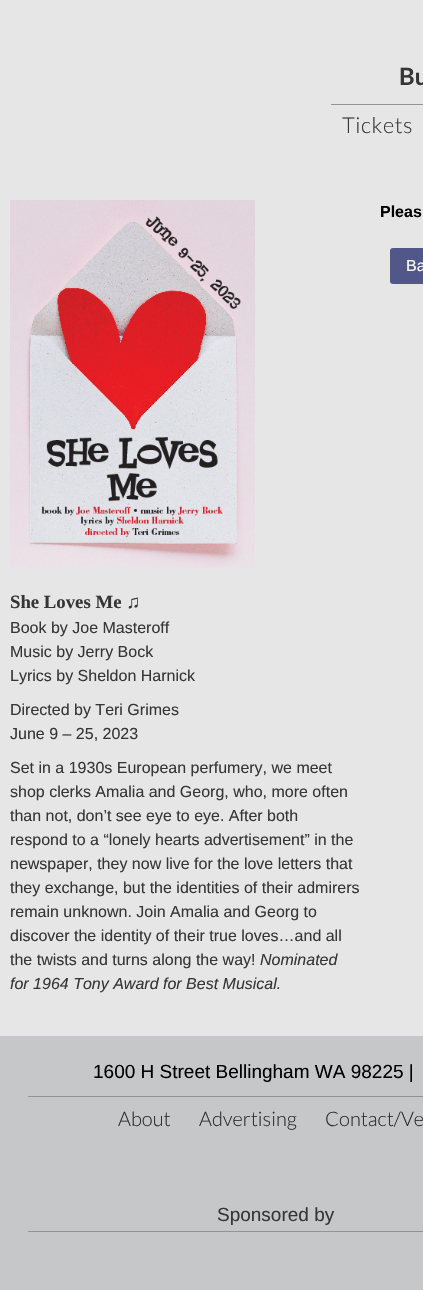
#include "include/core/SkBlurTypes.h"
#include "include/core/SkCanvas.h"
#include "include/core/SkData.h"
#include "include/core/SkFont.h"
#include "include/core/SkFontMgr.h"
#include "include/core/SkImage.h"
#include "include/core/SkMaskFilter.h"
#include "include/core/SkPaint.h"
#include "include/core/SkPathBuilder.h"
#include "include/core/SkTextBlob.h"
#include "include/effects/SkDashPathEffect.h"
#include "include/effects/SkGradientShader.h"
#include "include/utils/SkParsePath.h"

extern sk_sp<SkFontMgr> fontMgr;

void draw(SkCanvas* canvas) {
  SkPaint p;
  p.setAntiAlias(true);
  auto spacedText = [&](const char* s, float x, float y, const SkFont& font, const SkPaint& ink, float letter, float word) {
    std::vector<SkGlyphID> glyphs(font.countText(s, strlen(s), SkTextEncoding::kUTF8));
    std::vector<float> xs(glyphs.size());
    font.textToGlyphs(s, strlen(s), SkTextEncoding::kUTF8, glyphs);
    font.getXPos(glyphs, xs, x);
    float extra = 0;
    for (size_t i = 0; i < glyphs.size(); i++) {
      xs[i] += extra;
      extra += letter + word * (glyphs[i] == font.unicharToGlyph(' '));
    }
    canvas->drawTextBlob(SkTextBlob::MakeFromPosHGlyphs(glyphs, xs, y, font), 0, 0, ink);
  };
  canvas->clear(SkColorSetRGB(230, 230, 230));
  p.setColor(SkColorSetRGB(146, 148, 150));
  canvas->drawRect(SkRect::MakeLTRB(331, 104, 423, 105), p);
  p.setColor(SkColorSetRGB(81, 88, 137));
  canvas->drawRoundRect(SkRect::MakeLTRB(390, 248, 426, 284), 3, 3, p);
  canvas->drawImageRect(SkImages::DeferredFromEncodedData(SkData::MakeFromFileName("images/1.png")), SkRect::MakeLTRB(10, 200, 255, 568), SkSamplingOptions());
  p.setColor(SkColorSetRGB(198, 199, 201));
  canvas->drawRect(SkRect::MakeLTRB(0, 1036, 423, 1290), p);
  p.setColor(SkColorSetRGB(146, 148, 150));
  canvas->drawRect(SkRect::MakeLTRB(28, 1096, 423, 1097), p);
  canvas->drawRect(SkRect::MakeLTRB(28, 1231, 423, 1232), p);
  SkFont font1(fontMgr->matchFamilyStyle("Lato", SkFontStyle::Bold()), 24);
  font1.setSubpixel(true);
  p.setColor(SkColorSetRGB(54, 54, 54));
  canvas->drawString("Bu", 399, 85, font1, p);
  SkFont font2(fontMgr->matchFamilyStyle("Lato", SkFontStyle(300, SkFontStyle::kNormal_Width, SkFontStyle::kUpright_Slant)), 22);
  font2.setSubpixel(true);
  spacedText("Tickets", 342, 133, font2, p, 0.5f, 0);
  SkFont font3(fontMgr->matchFamilyStyle("Liberation Sans", SkFontStyle::Bold()), 16);
  font3.setSubpixel(true);
  p.setColor(SK_ColorBLACK);
  canvas->drawString("Pleas", 380, 217, font3, p);
  SkFont font4(fontMgr->matchFamilyStyle("Liberation Sans", SkFontStyle::Normal()), 16);
  font4.setSubpixel(true);
  p.setColor(SK_ColorWHITE);
  canvas->drawString("Ba", 406, 271, font4, p);
  SkFont font5(fontMgr->matchFamilyStyle("Liberation Serif", SkFontStyle::Bold()), 18.75f);
  font5.setSubpixel(true);
  p.setColor(SkColorSetRGB(54, 54, 54));
  canvas->drawString("She Loves Me ♫", 10, 608, font5, p);
  canvas->drawString("Book by Joe Masteroff", 10, 633, font4, p);
  canvas->drawString("Music by Jerry Bock", 10, 657, font4, p);
  canvas->drawString("Lyrics by Sheldon Harnick", 10, 681, font4, p);
  canvas->drawString("Directed by Teri Grimes", 10, 715, font4, p);
  canvas->drawString("June 9 – 25, 2023", 10, 739, font4, p);
  canvas->drawString("Set in a 1930s European perfumery, we meet", 10, 773, font4, p);
  canvas->drawString("shop clerks Amalia and Georg, who, more often", 10, 797, font4, p);
  canvas->drawString("than not, don’t see eye to eye. After both", 10, 821, font4, p);
  canvas->drawString("respond to a “lonely hearts advertisement” in the", 10, 845, font4, p);
  canvas->drawString("newspaper, they now live for the love letters that", 10, 869, font4, p);
  canvas->drawString("they exchange, but the identities of their admirers", 10, 893, font4, p);
  canvas->drawString("remain unknown. Join Amalia and Georg to", 10, 917, font4, p);
  canvas->drawString("discover the identity of their true loves…and all", 10, 941, font4, p);
  canvas->drawString("the twists and turns along the way!", 10, 965, font4, p);
  SkFont font6(fontMgr->matchFamilyStyle("Liberation Sans", SkFontStyle::Italic()), 16);
  font6.setSubpixel(true);
  canvas->drawString("Nominated", 260, 965, font6, p);
  canvas->drawString("for 1964 Tony Award for Best Musical.", 10, 989, font6, p);
  SkFont font7(fontMgr->matchFamilyStyle("Liberation Sans", SkFontStyle::Normal()), 19);
  font7.setSubpixel(true);
  p.setColor(SK_ColorBLACK);
  canvas->drawString("1600 H Street Bellingham WA 98225 |", 93, 1078, font7, p);
  SkFont font8(fontMgr->matchFamilyStyle("Lato", SkFontStyle(300, SkFontStyle::kNormal_Width, SkFontStyle::kUpright_Slant)), 20);
  font8.setSubpixel(true);
  p.setColor(SkColorSetRGB(44, 44, 44));
  canvas->drawString("About", 118, 1126, font8, p);
  canvas->drawString("Advertising", 199, 1126, font8, p);
  canvas->drawString("Contact/Ve", 325, 1126, font8, p);
  p.setColor(SkColorSetRGB(54, 54, 54));
  canvas->drawString("Sponsored by", 217, 1221, font7, p);
}
